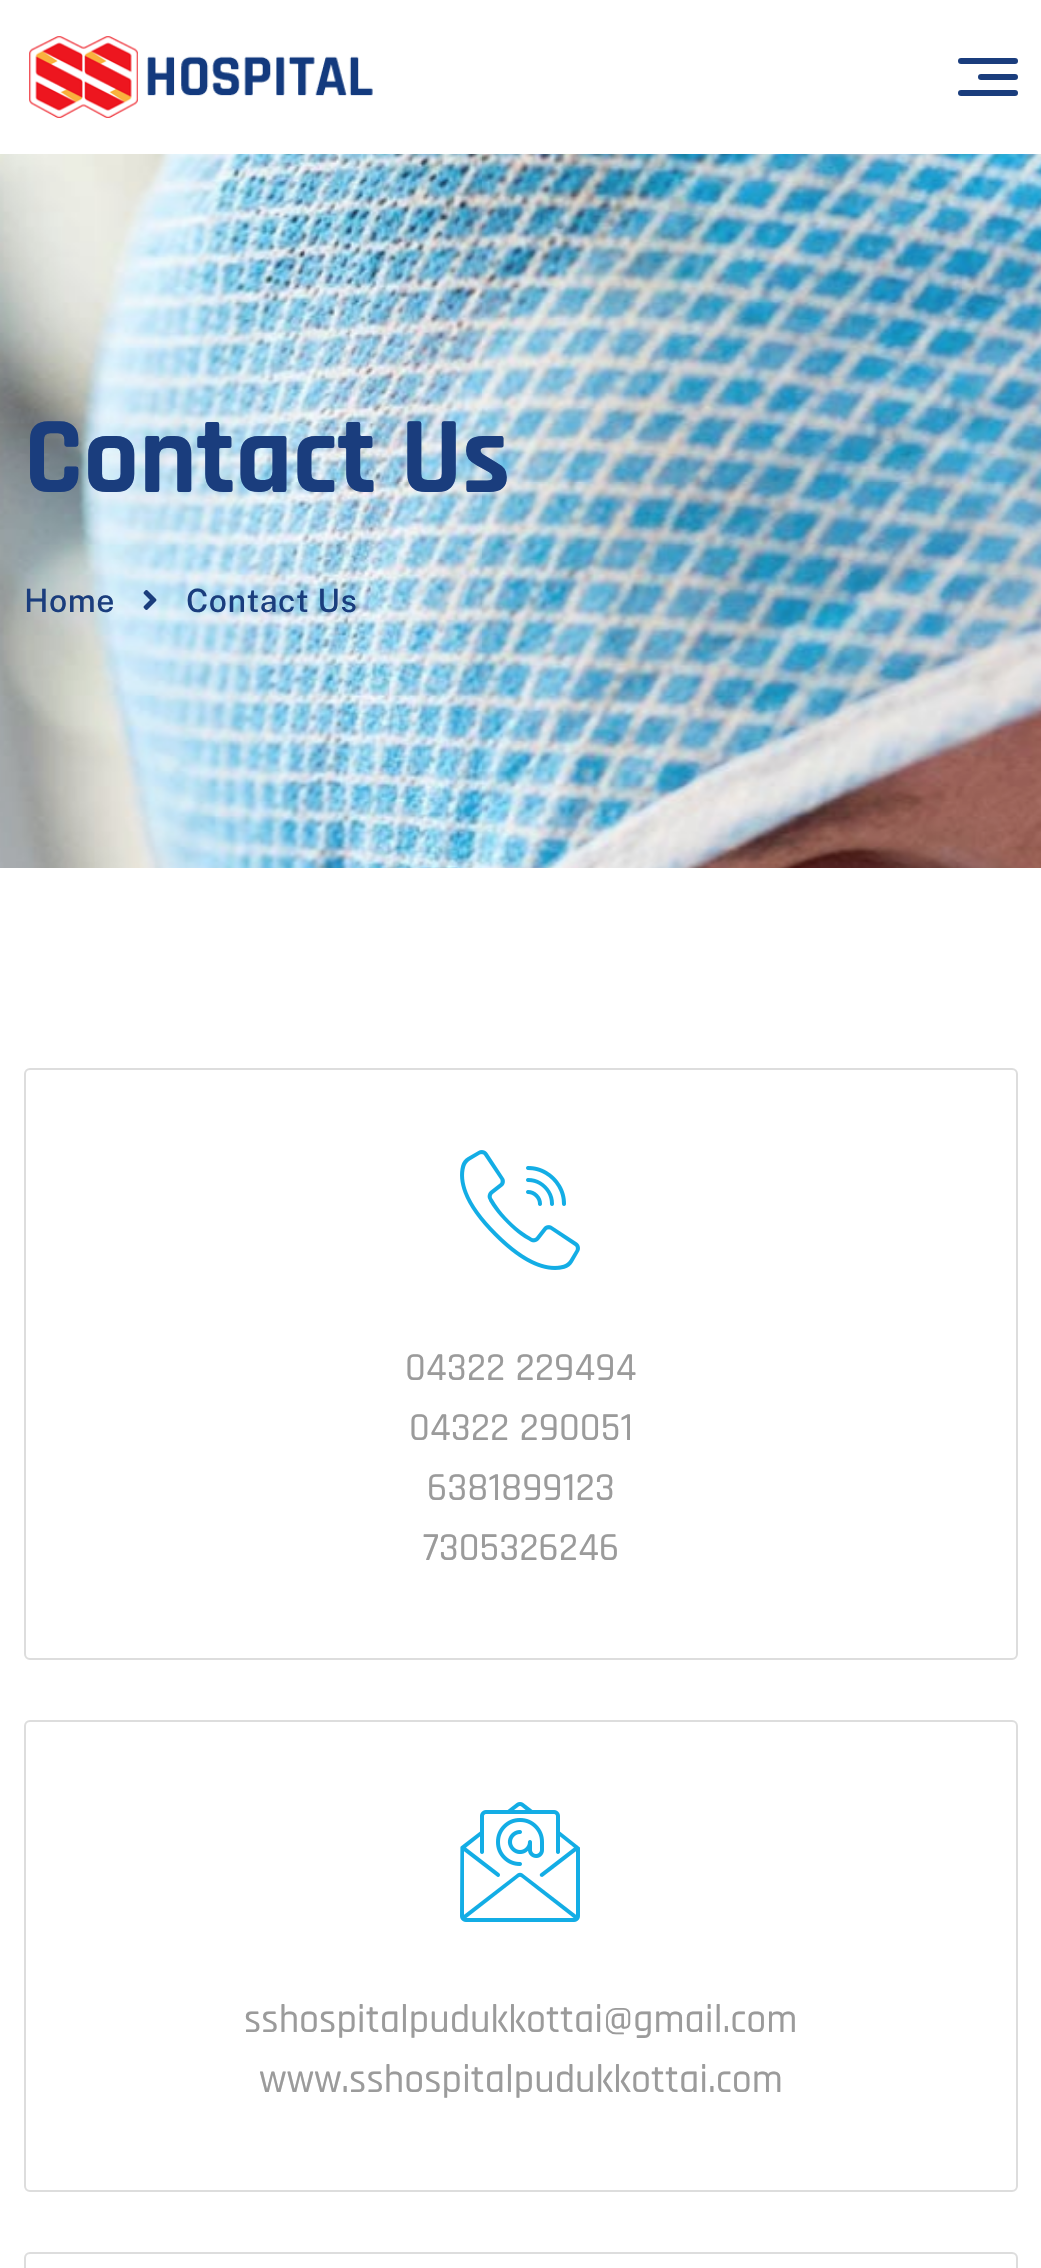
#include "include/core/SkBlurTypes.h"
#include "include/core/SkCanvas.h"
#include "include/core/SkData.h"
#include "include/core/SkFont.h"
#include "include/core/SkFontMgr.h"
#include "include/core/SkImage.h"
#include "include/core/SkMaskFilter.h"
#include "include/core/SkPaint.h"
#include "include/core/SkPathBuilder.h"
#include "include/core/SkTextBlob.h"
#include "include/effects/SkDashPathEffect.h"
#include "include/effects/SkGradientShader.h"
#include "include/utils/SkParsePath.h"

extern sk_sp<SkFontMgr> fontMgr;

void draw(SkCanvas* canvas) {
  SkPaint p;
  p.setAntiAlias(true);
  auto spacedText = [&](const char* s, float x, float y, const SkFont& font, const SkPaint& ink, float letter, float word) {
    std::vector<SkGlyphID> glyphs(font.countText(s, strlen(s), SkTextEncoding::kUTF8));
    std::vector<float> xs(glyphs.size());
    font.textToGlyphs(s, strlen(s), SkTextEncoding::kUTF8, glyphs);
    font.getXPos(glyphs, xs, x);
    float extra = 0;
    for (size_t i = 0; i < glyphs.size(); i++) {
      xs[i] += extra;
      extra += letter + word * (glyphs[i] == font.unicharToGlyph(' '));
    }
    canvas->drawTextBlob(SkTextBlob::MakeFromPosHGlyphs(glyphs, xs, y, font), 0, 0, ink);
  };
  canvas->clear(SK_ColorWHITE);
  canvas->drawImageRect(SkImages::DeferredFromEncodedData(SkData::MakeFromFileName("images/1.png")), SkRect::MakeLTRB(29, 36, 373, 118), SkSamplingOptions());
  p.setColor(SkColorSetRGB(26, 61, 125));
  canvas->drawRoundRect(SkRect::MakeLTRB(958, 58, 1018, 64), 3, 3, p);
  canvas->drawRoundRect(SkRect::MakeLTRB(978, 74, 1018, 80), 3, 3, p);
  canvas->drawRoundRect(SkRect::MakeLTRB(958, 90, 1018, 96), 3, 3, p);
  canvas->drawImageRect(SkImages::DeferredFromEncodedData(SkData::MakeFromFileName("images/2.png")), SkRect::MakeLTRB(0, 154, 1041, 868), SkSamplingOptions());
  canvas->drawImageRect(SkImages::DeferredFromEncodedData(SkData::MakeFromFileName("images/3.png")), SkRect::MakeLTRB(143, 590, 157, 610), SkSamplingOptions());
  p.setStyle(SkPaint::kStroke_Style);
  p.setStrokeWidth(2);
  p.setColor(SkColorSetRGB(221, 221, 221));
  canvas->drawRoundRect(SkRect::MakeLTRB(25, 1069, 1017, 1659), 5, 5, p);
  canvas->drawImageRect(SkImages::DeferredFromEncodedData(SkData::MakeFromFileName("images/4.png")), SkRect::MakeLTRB(460, 1150, 580, 1270), SkSamplingOptions());
  canvas->drawRoundRect(SkRect::MakeLTRB(25, 1721, 1017, 2191), 5, 5, p);
  canvas->drawImageRect(SkImages::DeferredFromEncodedData(SkData::MakeFromFileName("images/5.png")), SkRect::MakeLTRB(460, 1802, 580, 1922), SkSamplingOptions());
  canvas->drawRoundRect(SkRect::MakeLTRB(25, 2253, 1017, 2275), 5, 5, p);
  SkFont font1(fontMgr->matchFamilyStyle("Rajdhani", SkFontStyle::Bold()), 110);
  font1.setSubpixel(true);
  p.setStyle(SkPaint::kFill_Style);
  p.setColor(SkColorSetRGB(26, 61, 125));
  canvas->drawString("Contact Us", 24, 492, font1, p);
  SkFont font2(fontMgr->matchFamilyStyle("Public Sans", SkFontStyle(500, SkFontStyle::kNormal_Width, SkFontStyle::kUpright_Slant)), 32);
  font2.setSubpixel(true);
  spacedText("Home", 24, 612, font2, p, 0.5f, 0);
  spacedText("Contact Us", 186, 612, font2, p, 0.5f, 0);
  SkFont font3(fontMgr->matchFamilyStyle("Rajdhani", SkFontStyle(500, SkFontStyle::kNormal_Width, SkFontStyle::kUpright_Slant)), 40);
  font3.setSubpixel(true);
  p.setColor(SkColorSetRGB(155, 155, 155));
  canvas->drawString("04322 229494", 405, 1380, font3, p);
  canvas->drawString("04322 290051", 409, 1440, font3, p);
  canvas->drawString("6381899123", 427, 1500, font3, p);
  canvas->drawString("7305326246", 423, 1560, font3, p);
  canvas->drawString("sshospitalpudukkottai@gmail.com", 244, 2032, font3, p);
  canvas->drawString("www.sshospitalpudukkottai.com", 259, 2092, font3, p);
}
